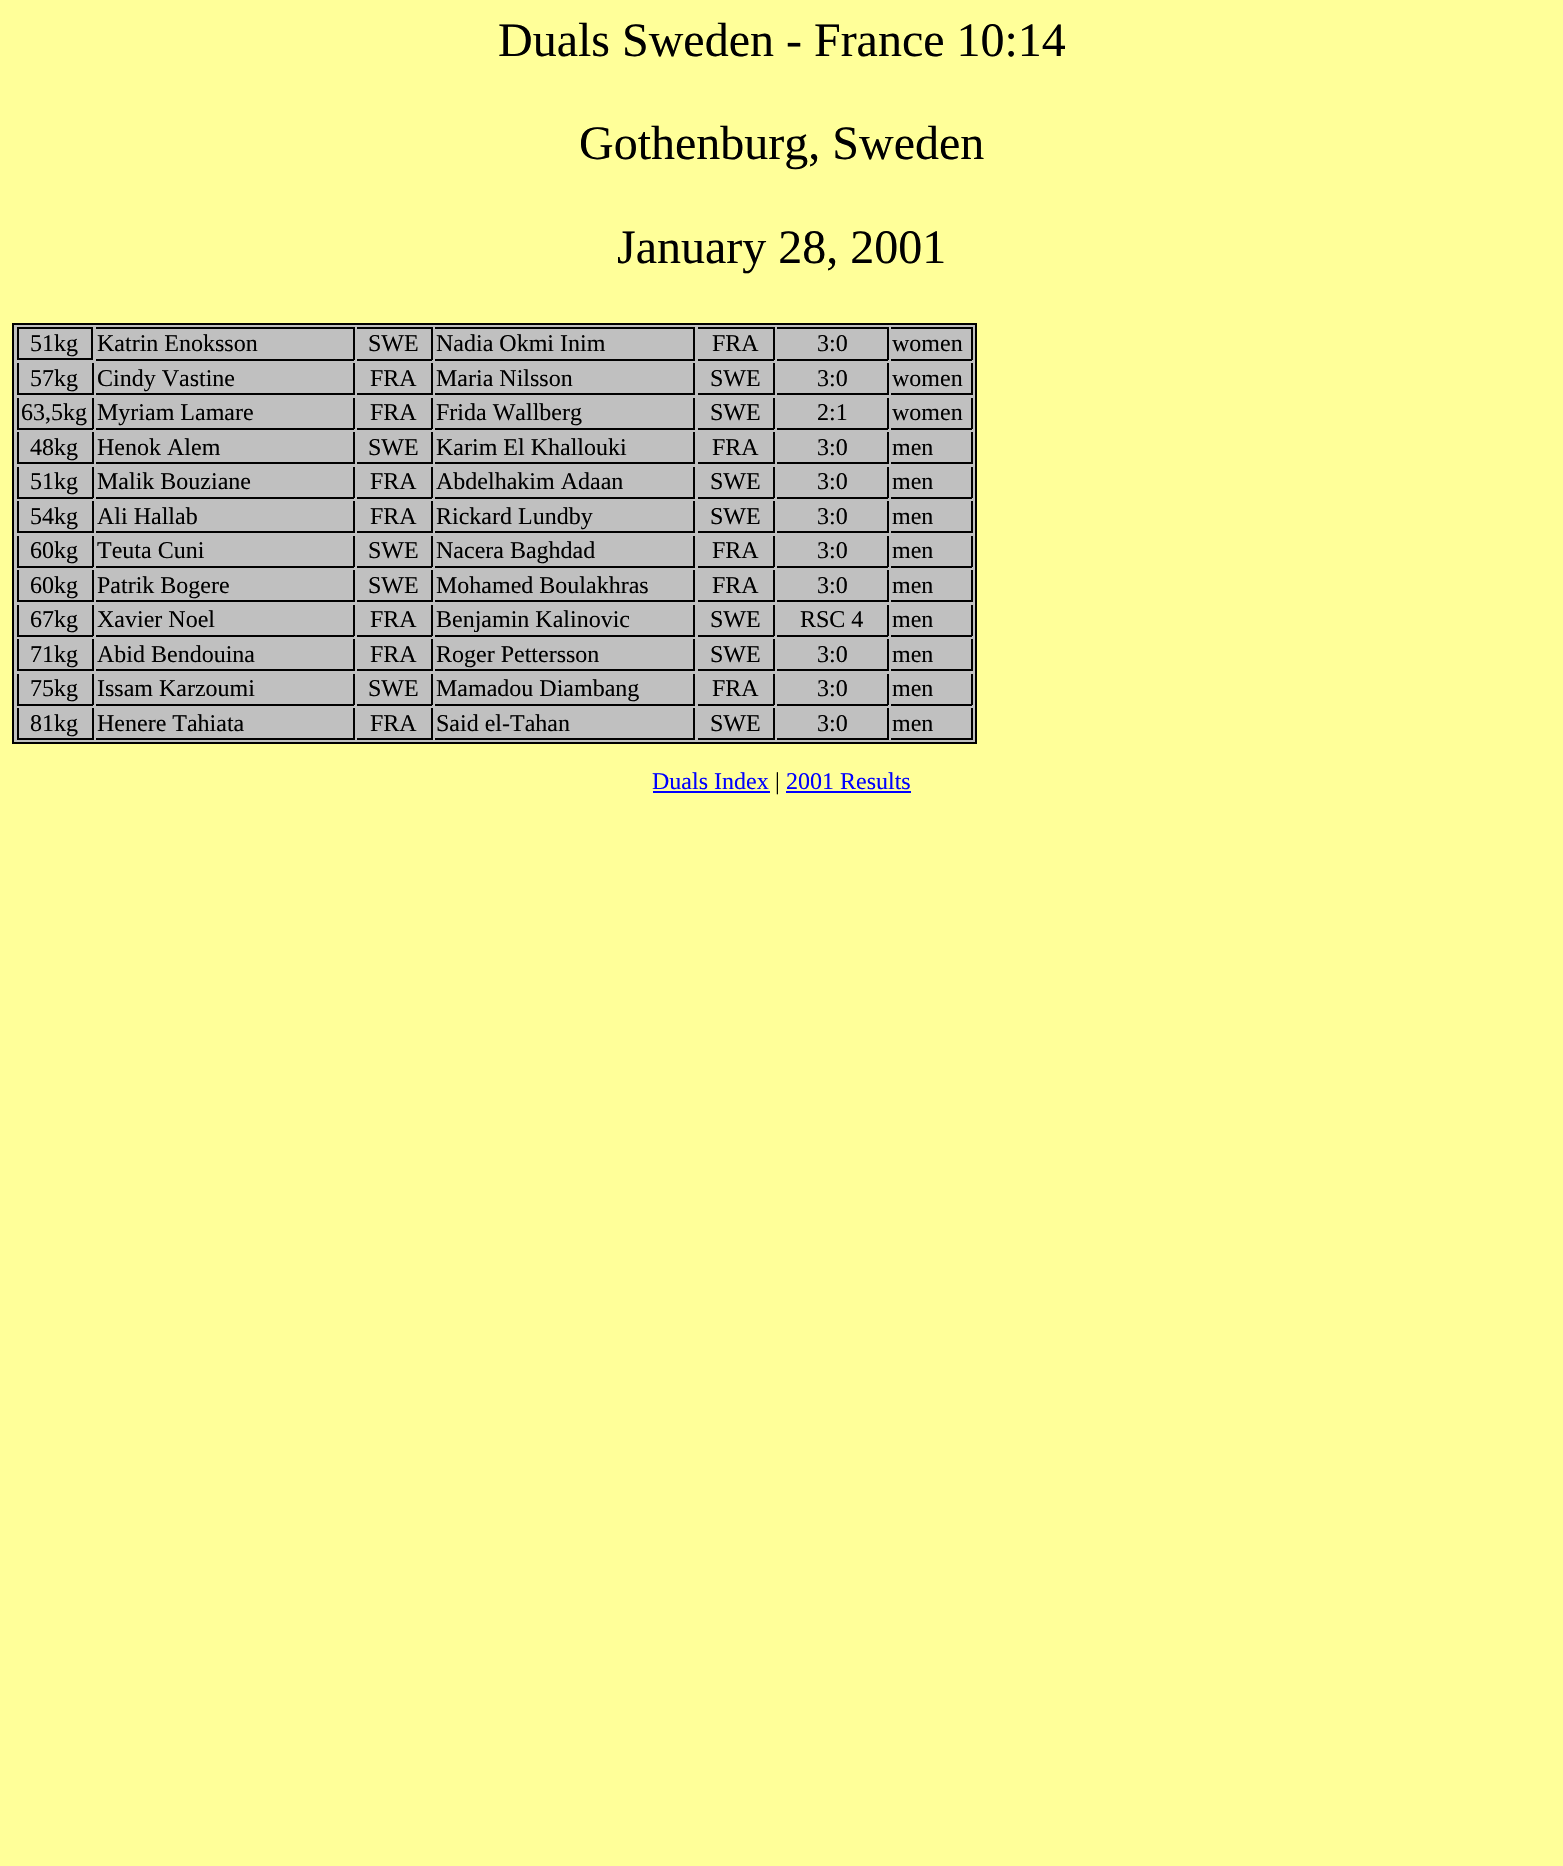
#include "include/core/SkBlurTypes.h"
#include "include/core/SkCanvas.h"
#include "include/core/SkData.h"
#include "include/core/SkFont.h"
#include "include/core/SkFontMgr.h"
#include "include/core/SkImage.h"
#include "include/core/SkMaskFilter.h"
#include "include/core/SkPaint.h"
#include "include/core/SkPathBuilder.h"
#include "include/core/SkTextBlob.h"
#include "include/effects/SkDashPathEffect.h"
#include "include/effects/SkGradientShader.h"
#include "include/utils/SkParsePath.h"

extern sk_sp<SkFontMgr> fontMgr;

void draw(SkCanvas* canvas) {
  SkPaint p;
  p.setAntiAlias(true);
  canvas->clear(SkColorSetRGB(255, 255, 153));
  p.setColor(SkColorSetRGB(192, 192, 192));
  canvas->drawRect(SkRect::MakeLTRB(13, 324, 976, 743), p);
  p.setStyle(SkPaint::kStroke_Style);
  p.setStrokeWidth(2);
  p.setColor(SK_ColorBLACK);
  canvas->drawRect(SkRect::MakeLTRB(13, 324, 976, 743), p);
  canvas->drawRect(SkRect::MakeLTRB(18, 328, 92, 359), p);
  p.setStyle(SkPaint::kFill_Style);
  canvas->drawRect(SkRect::MakeLTRB(96, 327, 354, 329), p);
  canvas->drawRect(SkRect::MakeLTRB(353, 327, 355, 360), p);
  canvas->drawRect(SkRect::MakeLTRB(96, 359, 354, 361), p);
  canvas->drawRect(SkRect::MakeLTRB(357, 327, 432, 329), p);
  canvas->drawRect(SkRect::MakeLTRB(431, 327, 433, 360), p);
  canvas->drawRect(SkRect::MakeLTRB(357, 359, 432, 361), p);
  canvas->drawRect(SkRect::MakeLTRB(435, 327, 695, 329), p);
  canvas->drawRect(SkRect::MakeLTRB(693, 327, 695, 360), p);
  canvas->drawRect(SkRect::MakeLTRB(435, 359, 695, 361), p);
  canvas->drawRect(SkRect::MakeLTRB(698, 327, 774, 329), p);
  canvas->drawRect(SkRect::MakeLTRB(773, 327, 775, 360), p);
  canvas->drawRect(SkRect::MakeLTRB(698, 359, 774, 361), p);
  canvas->drawRect(SkRect::MakeLTRB(777, 327, 888, 329), p);
  canvas->drawRect(SkRect::MakeLTRB(887, 327, 889, 360), p);
  canvas->drawRect(SkRect::MakeLTRB(777, 359, 888, 361), p);
  canvas->drawRect(SkRect::MakeLTRB(891, 327, 972, 329), p);
  canvas->drawRect(SkRect::MakeLTRB(971, 327, 973, 360), p);
  canvas->drawRect(SkRect::MakeLTRB(891, 359, 972, 361), p);
  canvas->drawRect(SkRect::MakeLTRB(92, 363, 94, 395), p);
  canvas->drawRect(SkRect::MakeLTRB(17, 393, 93, 395), p);
  canvas->drawRect(SkRect::MakeLTRB(17, 363, 19, 395), p);
  canvas->drawRect(SkRect::MakeLTRB(353, 363, 355, 395), p);
  canvas->drawRect(SkRect::MakeLTRB(96, 393, 354, 395), p);
  canvas->drawRect(SkRect::MakeLTRB(431, 363, 433, 395), p);
  canvas->drawRect(SkRect::MakeLTRB(357, 393, 432, 395), p);
  canvas->drawRect(SkRect::MakeLTRB(693, 363, 695, 395), p);
  canvas->drawRect(SkRect::MakeLTRB(435, 393, 695, 395), p);
  canvas->drawRect(SkRect::MakeLTRB(773, 363, 775, 395), p);
  canvas->drawRect(SkRect::MakeLTRB(698, 393, 774, 395), p);
  canvas->drawRect(SkRect::MakeLTRB(887, 363, 889, 395), p);
  canvas->drawRect(SkRect::MakeLTRB(777, 393, 888, 395), p);
  canvas->drawRect(SkRect::MakeLTRB(971, 363, 973, 395), p);
  canvas->drawRect(SkRect::MakeLTRB(891, 393, 972, 395), p);
  canvas->drawRect(SkRect::MakeLTRB(92, 398, 94, 429), p);
  canvas->drawRect(SkRect::MakeLTRB(17, 428, 93, 430), p);
  canvas->drawRect(SkRect::MakeLTRB(17, 398, 19, 429), p);
  canvas->drawRect(SkRect::MakeLTRB(353, 398, 355, 429), p);
  canvas->drawRect(SkRect::MakeLTRB(96, 428, 354, 430), p);
  canvas->drawRect(SkRect::MakeLTRB(431, 398, 433, 429), p);
  canvas->drawRect(SkRect::MakeLTRB(357, 428, 432, 430), p);
  canvas->drawRect(SkRect::MakeLTRB(693, 398, 695, 429), p);
  canvas->drawRect(SkRect::MakeLTRB(435, 428, 695, 430), p);
  canvas->drawRect(SkRect::MakeLTRB(773, 398, 775, 429), p);
  canvas->drawRect(SkRect::MakeLTRB(698, 428, 774, 430), p);
  canvas->drawRect(SkRect::MakeLTRB(887, 398, 889, 429), p);
  canvas->drawRect(SkRect::MakeLTRB(777, 428, 888, 430), p);
  canvas->drawRect(SkRect::MakeLTRB(971, 398, 973, 429), p);
  canvas->drawRect(SkRect::MakeLTRB(891, 428, 972, 430), p);
  canvas->drawRect(SkRect::MakeLTRB(92, 432, 94, 464), p);
  canvas->drawRect(SkRect::MakeLTRB(17, 462, 93, 464), p);
  canvas->drawRect(SkRect::MakeLTRB(17, 432, 19, 464), p);
  canvas->drawRect(SkRect::MakeLTRB(353, 432, 355, 464), p);
  canvas->drawRect(SkRect::MakeLTRB(96, 462, 354, 464), p);
  canvas->drawRect(SkRect::MakeLTRB(431, 432, 433, 464), p);
  canvas->drawRect(SkRect::MakeLTRB(357, 462, 432, 464), p);
  canvas->drawRect(SkRect::MakeLTRB(693, 432, 695, 464), p);
  canvas->drawRect(SkRect::MakeLTRB(435, 462, 695, 464), p);
  canvas->drawRect(SkRect::MakeLTRB(773, 432, 775, 464), p);
  canvas->drawRect(SkRect::MakeLTRB(698, 462, 774, 464), p);
  canvas->drawRect(SkRect::MakeLTRB(887, 432, 889, 464), p);
  canvas->drawRect(SkRect::MakeLTRB(777, 462, 888, 464), p);
  canvas->drawRect(SkRect::MakeLTRB(971, 432, 973, 464), p);
  canvas->drawRect(SkRect::MakeLTRB(891, 462, 972, 464), p);
  canvas->drawRect(SkRect::MakeLTRB(92, 467, 94, 498), p);
  canvas->drawRect(SkRect::MakeLTRB(17, 497, 93, 499), p);
  canvas->drawRect(SkRect::MakeLTRB(17, 467, 19, 498), p);
  canvas->drawRect(SkRect::MakeLTRB(353, 467, 355, 498), p);
  canvas->drawRect(SkRect::MakeLTRB(96, 497, 354, 499), p);
  canvas->drawRect(SkRect::MakeLTRB(431, 467, 433, 498), p);
  canvas->drawRect(SkRect::MakeLTRB(357, 497, 432, 499), p);
  canvas->drawRect(SkRect::MakeLTRB(693, 467, 695, 498), p);
  canvas->drawRect(SkRect::MakeLTRB(435, 497, 695, 499), p);
  canvas->drawRect(SkRect::MakeLTRB(773, 467, 775, 498), p);
  canvas->drawRect(SkRect::MakeLTRB(698, 497, 774, 499), p);
  canvas->drawRect(SkRect::MakeLTRB(887, 467, 889, 498), p);
  canvas->drawRect(SkRect::MakeLTRB(777, 497, 888, 499), p);
  canvas->drawRect(SkRect::MakeLTRB(971, 467, 973, 498), p);
  canvas->drawRect(SkRect::MakeLTRB(891, 497, 972, 499), p);
  canvas->drawRect(SkRect::MakeLTRB(92, 501, 94, 533), p);
  canvas->drawRect(SkRect::MakeLTRB(17, 531, 93, 533), p);
  canvas->drawRect(SkRect::MakeLTRB(17, 501, 19, 533), p);
  canvas->drawRect(SkRect::MakeLTRB(353, 501, 355, 533), p);
  canvas->drawRect(SkRect::MakeLTRB(96, 531, 354, 533), p);
  canvas->drawRect(SkRect::MakeLTRB(431, 501, 433, 533), p);
  canvas->drawRect(SkRect::MakeLTRB(357, 531, 432, 533), p);
  canvas->drawRect(SkRect::MakeLTRB(693, 501, 695, 533), p);
  canvas->drawRect(SkRect::MakeLTRB(435, 531, 695, 533), p);
  canvas->drawRect(SkRect::MakeLTRB(773, 501, 775, 533), p);
  canvas->drawRect(SkRect::MakeLTRB(698, 531, 774, 533), p);
  canvas->drawRect(SkRect::MakeLTRB(887, 501, 889, 533), p);
  canvas->drawRect(SkRect::MakeLTRB(777, 531, 888, 533), p);
  canvas->drawRect(SkRect::MakeLTRB(971, 501, 973, 533), p);
  canvas->drawRect(SkRect::MakeLTRB(891, 531, 972, 533), p);
  canvas->drawRect(SkRect::MakeLTRB(92, 536, 94, 567), p);
  canvas->drawRect(SkRect::MakeLTRB(17, 566, 93, 568), p);
  canvas->drawRect(SkRect::MakeLTRB(17, 536, 19, 567), p);
  canvas->drawRect(SkRect::MakeLTRB(353, 536, 355, 567), p);
  canvas->drawRect(SkRect::MakeLTRB(96, 566, 354, 568), p);
  canvas->drawRect(SkRect::MakeLTRB(431, 536, 433, 567), p);
  canvas->drawRect(SkRect::MakeLTRB(357, 566, 432, 568), p);
  canvas->drawRect(SkRect::MakeLTRB(693, 536, 695, 567), p);
  canvas->drawRect(SkRect::MakeLTRB(435, 566, 695, 568), p);
  canvas->drawRect(SkRect::MakeLTRB(773, 536, 775, 567), p);
  canvas->drawRect(SkRect::MakeLTRB(698, 566, 774, 568), p);
  canvas->drawRect(SkRect::MakeLTRB(887, 536, 889, 567), p);
  canvas->drawRect(SkRect::MakeLTRB(777, 566, 888, 568), p);
  canvas->drawRect(SkRect::MakeLTRB(971, 536, 973, 567), p);
  canvas->drawRect(SkRect::MakeLTRB(891, 566, 972, 568), p);
  canvas->drawRect(SkRect::MakeLTRB(92, 570, 94, 602), p);
  canvas->drawRect(SkRect::MakeLTRB(17, 600, 93, 602), p);
  canvas->drawRect(SkRect::MakeLTRB(17, 570, 19, 602), p);
  canvas->drawRect(SkRect::MakeLTRB(353, 570, 355, 602), p);
  canvas->drawRect(SkRect::MakeLTRB(96, 600, 354, 602), p);
  canvas->drawRect(SkRect::MakeLTRB(431, 570, 433, 602), p);
  canvas->drawRect(SkRect::MakeLTRB(357, 600, 432, 602), p);
  canvas->drawRect(SkRect::MakeLTRB(693, 570, 695, 602), p);
  canvas->drawRect(SkRect::MakeLTRB(435, 600, 695, 602), p);
  canvas->drawRect(SkRect::MakeLTRB(773, 570, 775, 602), p);
  canvas->drawRect(SkRect::MakeLTRB(698, 600, 774, 602), p);
  canvas->drawRect(SkRect::MakeLTRB(887, 570, 889, 602), p);
  canvas->drawRect(SkRect::MakeLTRB(777, 600, 888, 602), p);
  canvas->drawRect(SkRect::MakeLTRB(971, 570, 973, 602), p);
  canvas->drawRect(SkRect::MakeLTRB(891, 600, 972, 602), p);
  canvas->drawRect(SkRect::MakeLTRB(92, 605, 94, 636), p);
  canvas->drawRect(SkRect::MakeLTRB(17, 635, 93, 637), p);
  canvas->drawRect(SkRect::MakeLTRB(17, 605, 19, 636), p);
  canvas->drawRect(SkRect::MakeLTRB(353, 605, 355, 636), p);
  canvas->drawRect(SkRect::MakeLTRB(96, 635, 354, 637), p);
  canvas->drawRect(SkRect::MakeLTRB(431, 605, 433, 636), p);
  canvas->drawRect(SkRect::MakeLTRB(357, 635, 432, 637), p);
  canvas->drawRect(SkRect::MakeLTRB(693, 605, 695, 636), p);
  canvas->drawRect(SkRect::MakeLTRB(435, 635, 695, 637), p);
  canvas->drawRect(SkRect::MakeLTRB(773, 605, 775, 636), p);
  canvas->drawRect(SkRect::MakeLTRB(698, 635, 774, 637), p);
  canvas->drawRect(SkRect::MakeLTRB(887, 605, 889, 636), p);
  canvas->drawRect(SkRect::MakeLTRB(777, 635, 888, 637), p);
  canvas->drawRect(SkRect::MakeLTRB(971, 605, 973, 636), p);
  canvas->drawRect(SkRect::MakeLTRB(891, 635, 972, 637), p);
  canvas->drawRect(SkRect::MakeLTRB(92, 639, 94, 671), p);
  canvas->drawRect(SkRect::MakeLTRB(17, 669, 93, 671), p);
  canvas->drawRect(SkRect::MakeLTRB(17, 639, 19, 671), p);
  canvas->drawRect(SkRect::MakeLTRB(353, 639, 355, 671), p);
  canvas->drawRect(SkRect::MakeLTRB(96, 669, 354, 671), p);
  canvas->drawRect(SkRect::MakeLTRB(431, 639, 433, 671), p);
  canvas->drawRect(SkRect::MakeLTRB(357, 669, 432, 671), p);
  canvas->drawRect(SkRect::MakeLTRB(693, 639, 695, 671), p);
  canvas->drawRect(SkRect::MakeLTRB(435, 669, 695, 671), p);
  canvas->drawRect(SkRect::MakeLTRB(773, 639, 775, 671), p);
  canvas->drawRect(SkRect::MakeLTRB(698, 669, 774, 671), p);
  canvas->drawRect(SkRect::MakeLTRB(887, 639, 889, 671), p);
  canvas->drawRect(SkRect::MakeLTRB(777, 669, 888, 671), p);
  canvas->drawRect(SkRect::MakeLTRB(971, 639, 973, 671), p);
  canvas->drawRect(SkRect::MakeLTRB(891, 669, 972, 671), p);
  canvas->drawRect(SkRect::MakeLTRB(92, 674, 94, 705), p);
  canvas->drawRect(SkRect::MakeLTRB(17, 704, 93, 706), p);
  canvas->drawRect(SkRect::MakeLTRB(17, 674, 19, 705), p);
  canvas->drawRect(SkRect::MakeLTRB(353, 674, 355, 705), p);
  canvas->drawRect(SkRect::MakeLTRB(96, 704, 354, 706), p);
  canvas->drawRect(SkRect::MakeLTRB(431, 674, 433, 705), p);
  canvas->drawRect(SkRect::MakeLTRB(357, 704, 432, 706), p);
  canvas->drawRect(SkRect::MakeLTRB(693, 674, 695, 705), p);
  canvas->drawRect(SkRect::MakeLTRB(435, 704, 695, 706), p);
  canvas->drawRect(SkRect::MakeLTRB(773, 674, 775, 705), p);
  canvas->drawRect(SkRect::MakeLTRB(698, 704, 774, 706), p);
  canvas->drawRect(SkRect::MakeLTRB(887, 674, 889, 705), p);
  canvas->drawRect(SkRect::MakeLTRB(777, 704, 888, 706), p);
  canvas->drawRect(SkRect::MakeLTRB(971, 674, 973, 705), p);
  canvas->drawRect(SkRect::MakeLTRB(891, 704, 972, 706), p);
  canvas->drawRect(SkRect::MakeLTRB(92, 708, 94, 740), p);
  canvas->drawRect(SkRect::MakeLTRB(17, 738, 93, 740), p);
  canvas->drawRect(SkRect::MakeLTRB(17, 708, 19, 740), p);
  canvas->drawRect(SkRect::MakeLTRB(353, 708, 355, 740), p);
  canvas->drawRect(SkRect::MakeLTRB(96, 738, 354, 740), p);
  canvas->drawRect(SkRect::MakeLTRB(431, 708, 433, 740), p);
  canvas->drawRect(SkRect::MakeLTRB(357, 738, 432, 740), p);
  canvas->drawRect(SkRect::MakeLTRB(693, 708, 695, 740), p);
  canvas->drawRect(SkRect::MakeLTRB(435, 738, 695, 740), p);
  canvas->drawRect(SkRect::MakeLTRB(773, 708, 775, 740), p);
  canvas->drawRect(SkRect::MakeLTRB(698, 738, 774, 740), p);
  canvas->drawRect(SkRect::MakeLTRB(887, 708, 889, 740), p);
  canvas->drawRect(SkRect::MakeLTRB(777, 738, 888, 740), p);
  canvas->drawRect(SkRect::MakeLTRB(971, 708, 973, 740), p);
  canvas->drawRect(SkRect::MakeLTRB(891, 738, 972, 740), p);
  p.setColor(SkColorSetRGB(0, 0, 255));
  canvas->drawRect(SkRect::MakeLTRB(653, 791, 770, 793), p);
  canvas->drawRect(SkRect::MakeLTRB(786, 791, 911, 793), p);
  SkFont font1(fontMgr->matchFamilyStyle("Liberation Serif", SkFontStyle::Normal()), 48);
  font1.setSubpixel(true);
  p.setColor(SK_ColorBLACK);
  canvas->drawString("Duals Sweden - France 10:14", 498, 56, font1, p);
  canvas->drawString("Gothenburg, Sweden", 579, 159, font1, p);
  canvas->drawString("January 28, 2001", 617, 263, font1, p);
  SkFont font2(fontMgr->matchFamilyStyle("Liberation Serif", SkFontStyle::Normal()), 24);
  font2.setSubpixel(true);
  canvas->drawString("51kg", 30, 351, font2, p);
  canvas->drawString("Katrin Enoksson", 97, 351, font2, p);
  canvas->drawString("SWE", 368, 351, font2, p);
  canvas->drawString("Nadia Okmi Inim", 436, 351, font2, p);
  canvas->drawString("FRA", 712, 351, font2, p);
  canvas->drawString("3:0", 817, 351, font2, p);
  canvas->drawString("women", 892, 351, font2, p);
  canvas->drawString("57kg", 30, 386, font2, p);
  canvas->drawString("Cindy Vastine", 97, 386, font2, p);
  canvas->drawString("FRA", 370, 386, font2, p);
  canvas->drawString("Maria Nilsson", 436, 386, font2, p);
  canvas->drawString("SWE", 710, 386, font2, p);
  canvas->drawString("3:0", 817, 386, font2, p);
  canvas->drawString("women", 892, 386, font2, p);
  canvas->drawString("63,5kg", 21, 420, font2, p);
  canvas->drawString("Myriam Lamare", 97, 420, font2, p);
  canvas->drawString("FRA", 370, 420, font2, p);
  canvas->drawString("Frida Wallberg", 436, 420, font2, p);
  canvas->drawString("SWE", 710, 420, font2, p);
  canvas->drawString("2:1", 817, 420, font2, p);
  canvas->drawString("women", 892, 420, font2, p);
  canvas->drawString("48kg", 30, 455, font2, p);
  canvas->drawString("Henok Alem", 97, 455, font2, p);
  canvas->drawString("SWE", 368, 455, font2, p);
  canvas->drawString("Karim El Khallouki", 436, 455, font2, p);
  canvas->drawString("FRA", 712, 455, font2, p);
  canvas->drawString("3:0", 817, 455, font2, p);
  canvas->drawString("men", 892, 455, font2, p);
  canvas->drawString("51kg", 30, 489, font2, p);
  canvas->drawString("Malik Bouziane", 97, 489, font2, p);
  canvas->drawString("FRA", 370, 489, font2, p);
  canvas->drawString("Abdelhakim Adaan", 436, 489, font2, p);
  canvas->drawString("SWE", 710, 489, font2, p);
  canvas->drawString("3:0", 817, 489, font2, p);
  canvas->drawString("men", 892, 489, font2, p);
  canvas->drawString("54kg", 30, 524, font2, p);
  canvas->drawString("Ali Hallab", 97, 524, font2, p);
  canvas->drawString("FRA", 370, 524, font2, p);
  canvas->drawString("Rickard Lundby", 436, 524, font2, p);
  canvas->drawString("SWE", 710, 524, font2, p);
  canvas->drawString("3:0", 817, 524, font2, p);
  canvas->drawString("men", 892, 524, font2, p);
  canvas->drawString("60kg", 30, 558, font2, p);
  canvas->drawString("Teuta Cuni", 97, 558, font2, p);
  canvas->drawString("SWE", 368, 558, font2, p);
  canvas->drawString("Nacera Baghdad", 436, 558, font2, p);
  canvas->drawString("FRA", 712, 558, font2, p);
  canvas->drawString("3:0", 817, 558, font2, p);
  canvas->drawString("men", 892, 558, font2, p);
  canvas->drawString("60kg", 30, 593, font2, p);
  canvas->drawString("Patrik Bogere", 97, 593, font2, p);
  canvas->drawString("SWE", 368, 593, font2, p);
  canvas->drawString("Mohamed Boulakhras", 436, 593, font2, p);
  canvas->drawString("FRA", 712, 593, font2, p);
  canvas->drawString("3:0", 817, 593, font2, p);
  canvas->drawString("men", 892, 593, font2, p);
  canvas->drawString("67kg", 30, 627, font2, p);
  canvas->drawString("Xavier Noel", 97, 627, font2, p);
  canvas->drawString("FRA", 370, 627, font2, p);
  canvas->drawString("Benjamin Kalinovic", 436, 627, font2, p);
  canvas->drawString("SWE", 710, 627, font2, p);
  canvas->drawString("RSC 4", 800, 627, font2, p);
  canvas->drawString("men", 892, 627, font2, p);
  canvas->drawString("71kg", 30, 662, font2, p);
  canvas->drawString("Abid Bendouina", 97, 662, font2, p);
  canvas->drawString("FRA", 370, 662, font2, p);
  canvas->drawString("Roger Pettersson", 436, 662, font2, p);
  canvas->drawString("SWE", 710, 662, font2, p);
  canvas->drawString("3:0", 817, 662, font2, p);
  canvas->drawString("men", 892, 662, font2, p);
  canvas->drawString("75kg", 30, 696, font2, p);
  canvas->drawString("Issam Karzoumi", 97, 696, font2, p);
  canvas->drawString("SWE", 368, 696, font2, p);
  canvas->drawString("Mamadou Diambang", 436, 696, font2, p);
  canvas->drawString("FRA", 712, 696, font2, p);
  canvas->drawString("3:0", 817, 696, font2, p);
  canvas->drawString("men", 892, 696, font2, p);
  canvas->drawString("81kg", 30, 731, font2, p);
  canvas->drawString("Henere Tahiata", 97, 731, font2, p);
  canvas->drawString("FRA", 370, 731, font2, p);
  canvas->drawString("Said el-Tahan", 436, 731, font2, p);
  canvas->drawString("SWE", 710, 731, font2, p);
  canvas->drawString("3:0", 817, 731, font2, p);
  canvas->drawString("men", 892, 731, font2, p);
  p.setColor(SkColorSetRGB(0, 0, 255));
  canvas->drawString("Duals Index", 652, 789, font2, p);
  p.setColor(SK_ColorBLACK);
  canvas->drawString("|", 775, 789, font2, p);
  p.setColor(SkColorSetRGB(0, 0, 255));
  canvas->drawString("2001 Results", 786, 789, font2, p);
}
